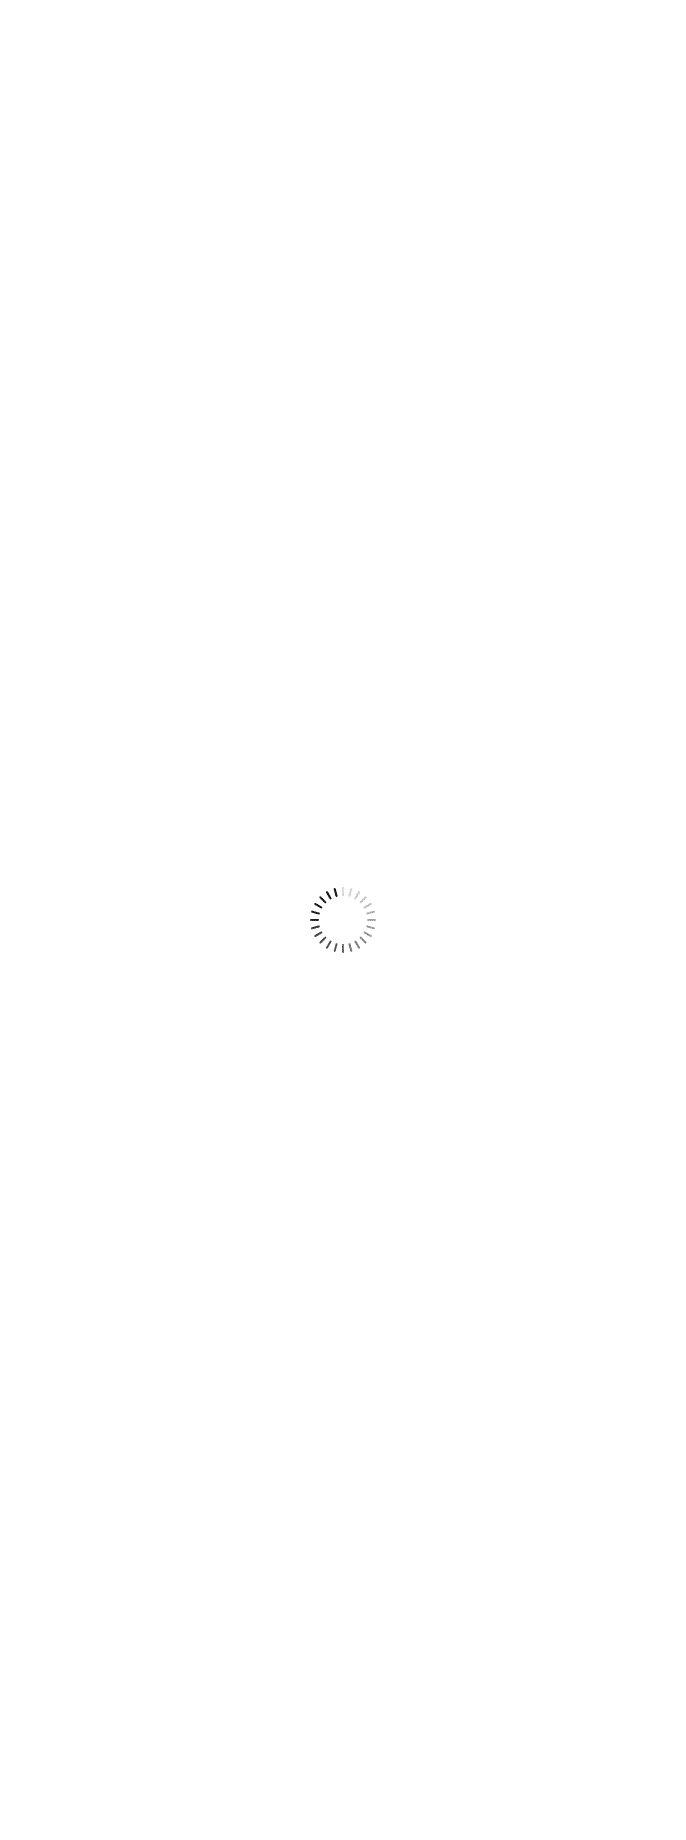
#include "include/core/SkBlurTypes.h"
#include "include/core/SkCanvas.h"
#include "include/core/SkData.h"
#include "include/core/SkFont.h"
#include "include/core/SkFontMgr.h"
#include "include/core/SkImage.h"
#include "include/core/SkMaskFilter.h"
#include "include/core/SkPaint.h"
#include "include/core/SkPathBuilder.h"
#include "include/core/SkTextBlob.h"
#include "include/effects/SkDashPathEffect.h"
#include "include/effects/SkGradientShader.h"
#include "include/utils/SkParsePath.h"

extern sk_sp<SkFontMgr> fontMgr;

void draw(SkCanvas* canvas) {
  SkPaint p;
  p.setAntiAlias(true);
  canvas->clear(SK_ColorWHITE);
  canvas->drawImageRect(SkImages::DeferredFromEncodedData(SkData::MakeFromFileName("images/1.png")), SkRect::MakeLTRB(310, 887, 376, 953), SkSamplingOptions());
}
